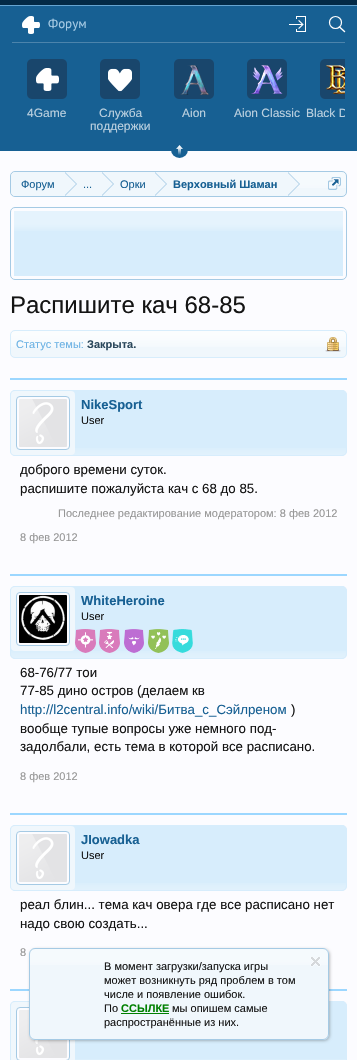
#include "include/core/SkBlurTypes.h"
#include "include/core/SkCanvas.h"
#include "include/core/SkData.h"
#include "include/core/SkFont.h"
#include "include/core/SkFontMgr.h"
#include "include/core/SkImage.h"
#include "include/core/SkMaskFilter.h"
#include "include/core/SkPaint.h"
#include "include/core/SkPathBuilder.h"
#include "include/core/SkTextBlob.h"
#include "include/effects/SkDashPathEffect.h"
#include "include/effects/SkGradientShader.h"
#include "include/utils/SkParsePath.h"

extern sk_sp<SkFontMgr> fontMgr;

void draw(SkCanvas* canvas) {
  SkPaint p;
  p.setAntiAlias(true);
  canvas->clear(SkColorSetRGB(252, 252, 255));
  p.setColor(SkColorSetRGB(3, 42, 70));
  canvas->drawRect(SkRect::MakeLTRB(0, 0, 357, 5), p);
  p.setColor(SkColorSetRGB(101, 165, 209));
  canvas->drawRect(SkRect::MakeLTRB(0, 5, 357, 6), p);
  p.setColor(SkColorSetRGB(23, 96, 147));
  canvas->drawRect(SkRect::MakeLTRB(0, 6, 357, 151), p);
  p.setColor(SkColorSetRGB(76, 132, 172));
  canvas->drawRect(SkRect::MakeLTRB(12, 42, 345, 43), p);
  canvas->drawImageRect(SkImages::DeferredFromEncodedData(SkData::MakeFromFileName("images/1.png")), SkRect::MakeLTRB(22, 16, 40, 34), SkSamplingOptions());
  canvas->drawImageRect(SkImages::DeferredFromEncodedData(SkData::MakeFromFileName("images/2.png")), SkRect::MakeLTRB(289, 16, 306, 32), SkSamplingOptions());
  p.setStyle(SkPaint::kStroke_Style);
  p.setStrokeWidth(1.2f);
  p.setColor(SK_ColorWHITE);
  canvas->drawCircle(335.5f, 22.5f, 6, p);
  p.setStrokeWidth(1.5f);
  p.setStrokeCap(SkPaint::kRound_Cap);
  canvas->drawPath(SkPathBuilder().moveTo(339.5f, 27).lineTo(344.5f, 31.5f).detach(), p);
  p.setStyle(SkPaint::kFill_Style);
  p.setColor(SkColorSetRGB(23, 96, 147));
  canvas->drawCircle(179.5f, 149.5f, 8.5f, p);
  canvas->drawImageRect(SkImages::DeferredFromEncodedData(SkData::MakeFromFileName("images/3.png")), SkRect::MakeLTRB(176, 145, 183, 155), SkSamplingOptions());
  canvas->drawImageRect(SkImages::DeferredFromEncodedData(SkData::MakeFromFileName("images/4.png")), SkRect::MakeLTRB(27, 59, 67, 99), SkSamplingOptions());
  canvas->drawImageRect(SkImages::DeferredFromEncodedData(SkData::MakeFromFileName("images/5.png")), SkRect::MakeLTRB(100, 59, 140, 99), SkSamplingOptions());
  canvas->drawImageRect(SkImages::DeferredFromEncodedData(SkData::MakeFromFileName("images/6.png")), SkRect::MakeLTRB(174, 59, 214, 99), SkSamplingOptions());
  canvas->drawImageRect(SkImages::DeferredFromEncodedData(SkData::MakeFromFileName("images/7.png")), SkRect::MakeLTRB(247, 59, 287, 99), SkSamplingOptions());
  canvas->drawImageRect(SkImages::DeferredFromEncodedData(SkData::MakeFromFileName("images/8.png")), SkRect::MakeLTRB(320, 59, 345, 99), SkSamplingOptions());
  p.setColor(SkColorSetRGB(240, 247, 252));
  canvas->drawRoundRect(SkRect::MakeLTRB(10, 171, 347, 197), 5, 5, p);
  canvas->drawImageRect(SkImages::DeferredFromEncodedData(SkData::MakeFromFileName("images/9.png")), SkRect::MakeLTRB(10, 172, 347, 188), SkSamplingOptions());
  p.setStyle(SkPaint::kStroke_Style);
  p.setStrokeWidth(1);
  p.setStrokeCap(SkPaint::kButt_Cap);
  p.setColor(SkColorSetRGB(165, 202, 228));
  canvas->drawRoundRect(SkRect::MakeLTRB(10.5f, 171.5f, 346.5f, 196.5f), 4.5f, 4.5f, p);
  canvas->save();
  canvas->clipPath(SkPathBuilder().moveTo(15, 172).lineTo(342, 172).cubicTo(344, 172, 346, 174, 346, 176).lineTo(346, 192).cubicTo(346, 194, 344, 196, 342, 196).lineTo(15, 196).cubicTo(13, 196, 11, 194, 11, 192).lineTo(11, 176).cubicTo(11, 174, 13, 172, 15, 172).close().detach(), true);
  p.setStyle(SkPaint::kFill_Style);
  p.setColor(SkColorSetRGB(240, 247, 252));
  canvas->drawPath(SkPathBuilder().moveTo(16, 172).lineTo(65, 172).lineTo(65, 197).lineTo(16, 197).cubicTo(13, 197, 11, 195, 11, 192).lineTo(11, 177).cubicTo(11, 174, 13, 172, 16, 172).close().detach(), p);
  canvas->restore();
  canvas->drawRect(SkRect::MakeLTRB(65, 172, 288, 188), p);
  p.setColor(SkColorSetRGB(165, 202, 228));
  canvas->drawPath(SkPathBuilder().moveTo(65, 196).lineTo(65, 172).lineTo(77, 184).close().detach(), p);
  p.setColor(SkColorSetRGB(240, 247, 252));
  canvas->drawPath(SkPathBuilder().moveTo(64, 196).lineTo(64, 172).lineTo(76, 184).close().detach(), p);
  p.setColor(SkColorSetRGB(165, 202, 228));
  canvas->drawPath(SkPathBuilder().moveTo(102, 196).lineTo(102, 172).lineTo(114, 184).close().detach(), p);
  p.setColor(SkColorSetRGB(240, 247, 252));
  canvas->drawPath(SkPathBuilder().moveTo(101, 196).lineTo(101, 172).lineTo(113, 184).close().detach(), p);
  p.setColor(SkColorSetRGB(165, 202, 228));
  canvas->drawPath(SkPathBuilder().moveTo(155, 196).lineTo(155, 172).lineTo(167, 184).close().detach(), p);
  p.setColor(SkColorSetRGB(240, 247, 252));
  canvas->drawPath(SkPathBuilder().moveTo(154, 196).lineTo(154, 172).lineTo(166, 184).close().detach(), p);
  p.setColor(SkColorSetRGB(165, 202, 228));
  canvas->drawPath(SkPathBuilder().moveTo(288, 196).lineTo(288, 172).lineTo(300, 184).close().detach(), p);
  p.setColor(SkColorSetRGB(240, 247, 252));
  canvas->drawPath(SkPathBuilder().moveTo(287, 196).lineTo(287, 172).lineTo(299, 184).close().detach(), p);
  canvas->drawImageRect(SkImages::DeferredFromEncodedData(SkData::MakeFromFileName("images/10.png")), SkRect::MakeLTRB(328, 177, 341, 190), SkSamplingOptions());
  p.setStyle(SkPaint::kStroke_Style);
  p.setColor(SkColorSetRGB(165, 202, 228));
  canvas->drawRoundRect(SkRect::MakeLTRB(10.5f, 207.5f, 346.5f, 279.5f), 4.5f, 4.5f, p);
  p.setStyle(SkPaint::kFill_Style);
  p.setColor(SkColorSetRGB(215, 237, 252));
  canvas->drawRect(SkRect::MakeLTRB(14, 211, 343, 276), p);
  canvas->drawImageRect(SkImages::DeferredFromEncodedData(SkData::MakeFromFileName("images/11.png")), SkRect::MakeLTRB(14, 211, 343, 231), SkSamplingOptions());
  p.setColor(SkColorSetRGB(240, 247, 252));
  canvas->drawRoundRect(SkRect::MakeLTRB(10, 330, 347, 358), 5, 5, p);
  canvas->drawImageRect(SkImages::DeferredFromEncodedData(SkData::MakeFromFileName("images/12.png")), SkRect::MakeLTRB(10, 331, 347, 347), SkSamplingOptions());
  p.setStyle(SkPaint::kStroke_Style);
  p.setColor(SkColorSetRGB(215, 237, 252));
  canvas->drawRoundRect(SkRect::MakeLTRB(10.5f, 330.5f, 346.5f, 357.5f), 4.5f, 4.5f, p);
  canvas->drawImageRect(SkImages::DeferredFromEncodedData(SkData::MakeFromFileName("images/13.png")), SkRect::MakeLTRB(325, 337, 341, 352), SkSamplingOptions());
  p.setStyle(SkPaint::kFill_Style);
  p.setColor(SkColorSetRGB(156, 215, 255));
  canvas->drawRect(SkRect::MakeLTRB(10, 378, 347, 380), p);
  p.setColor(SkColorSetRGB(215, 237, 252));
  canvas->drawRoundRect(SkRect::MakeLTRB(10, 390, 347, 456), 5, 5, p);
  canvas->drawImageRect(SkImages::DeferredFromEncodedData(SkData::MakeFromFileName("images/14.png")), SkRect::MakeLTRB(10, 448, 347, 455), SkSamplingOptions());
  p.setStyle(SkPaint::kStroke_Style);
  canvas->drawRoundRect(SkRect::MakeLTRB(10.5f, 390.5f, 346.5f, 455.5f), 4.5f, 4.5f, p);
  p.setStyle(SkPaint::kFill_Style);
  p.setColor(SkColorSetRGB(240, 247, 252));
  canvas->drawRoundRect(SkRect::MakeLTRB(11, 391, 75, 455), 4, 4, p);
  p.setColor(SkColorSetRGB(252, 252, 255));
  canvas->drawRoundRect(SkRect::MakeLTRB(16.5f, 396.5f, 69.5f, 449.5f), 3.5f, 3.5f, p);
  p.setStyle(SkPaint::kStroke_Style);
  p.setColor(SkColorSetRGB(165, 202, 228));
  canvas->drawRoundRect(SkRect::MakeLTRB(16.5f, 396.5f, 69.5f, 449.5f), 3.5f, 3.5f, p);
  canvas->drawImageRect(SkImages::DeferredFromEncodedData(SkData::MakeFromFileName("images/15.png")), SkRect::MakeLTRB(19, 399, 67, 447), SkSamplingOptions());
  p.setStyle(SkPaint::kFill_Style);
  p.setColor(SkColorSetRGB(156, 215, 255));
  canvas->drawRect(SkRect::MakeLTRB(10, 574, 347, 576), p);
  p.setColor(SkColorSetRGB(215, 237, 252));
  canvas->drawRoundRect(SkRect::MakeLTRB(10, 586, 347, 659), 5, 5, p);
  canvas->drawImageRect(SkImages::DeferredFromEncodedData(SkData::MakeFromFileName("images/14.png")), SkRect::MakeLTRB(10, 651, 347, 658), SkSamplingOptions());
  p.setStyle(SkPaint::kStroke_Style);
  canvas->drawRoundRect(SkRect::MakeLTRB(10.5f, 586.5f, 346.5f, 658.5f), 4.5f, 4.5f, p);
  p.setStyle(SkPaint::kFill_Style);
  p.setColor(SkColorSetRGB(240, 247, 252));
  canvas->drawRoundRect(SkRect::MakeLTRB(11, 587, 75, 651), 4, 4, p);
  p.setColor(SkColorSetRGB(252, 252, 255));
  canvas->drawRoundRect(SkRect::MakeLTRB(16.5f, 592.5f, 69.5f, 645.5f), 3.5f, 3.5f, p);
  p.setStyle(SkPaint::kStroke_Style);
  p.setColor(SkColorSetRGB(165, 202, 228));
  canvas->drawRoundRect(SkRect::MakeLTRB(16.5f, 592.5f, 69.5f, 645.5f), 3.5f, 3.5f, p);
  canvas->drawImageRect(SkImages::DeferredFromEncodedData(SkData::MakeFromFileName("images/16.png")), SkRect::MakeLTRB(19, 595, 67, 643), SkSamplingOptions());
  canvas->drawImageRect(SkImages::DeferredFromEncodedData(SkData::MakeFromFileName("images/17.png")), SkRect::MakeLTRB(75, 629, 96, 653), SkSamplingOptions());
  canvas->drawImageRect(SkImages::DeferredFromEncodedData(SkData::MakeFromFileName("images/18.png")), SkRect::MakeLTRB(99, 629, 120, 653), SkSamplingOptions());
  canvas->drawImageRect(SkImages::DeferredFromEncodedData(SkData::MakeFromFileName("images/19.png")), SkRect::MakeLTRB(124, 629, 144, 653), SkSamplingOptions());
  canvas->drawImageRect(SkImages::DeferredFromEncodedData(SkData::MakeFromFileName("images/20.png")), SkRect::MakeLTRB(148, 629, 169, 653), SkSamplingOptions());
  canvas->drawImageRect(SkImages::DeferredFromEncodedData(SkData::MakeFromFileName("images/21.png")), SkRect::MakeLTRB(172, 629, 193, 653), SkSamplingOptions());
  p.setStyle(SkPaint::kFill_Style);
  p.setColor(SkColorSetRGB(156, 215, 255));
  canvas->drawRect(SkRect::MakeLTRB(10, 813, 347, 815), p);
  p.setColor(SkColorSetRGB(215, 237, 252));
  canvas->drawRoundRect(SkRect::MakeLTRB(10, 825, 347, 891), 5, 5, p);
  canvas->drawImageRect(SkImages::DeferredFromEncodedData(SkData::MakeFromFileName("images/14.png")), SkRect::MakeLTRB(10, 883, 347, 890), SkSamplingOptions());
  p.setStyle(SkPaint::kStroke_Style);
  canvas->drawRoundRect(SkRect::MakeLTRB(10.5f, 825.5f, 346.5f, 890.5f), 4.5f, 4.5f, p);
  p.setStyle(SkPaint::kFill_Style);
  p.setColor(SkColorSetRGB(240, 247, 252));
  canvas->drawRoundRect(SkRect::MakeLTRB(11, 826, 75, 890), 4, 4, p);
  p.setColor(SkColorSetRGB(252, 252, 255));
  canvas->drawRoundRect(SkRect::MakeLTRB(16.5f, 831.5f, 69.5f, 884.5f), 3.5f, 3.5f, p);
  p.setStyle(SkPaint::kStroke_Style);
  p.setColor(SkColorSetRGB(165, 202, 228));
  canvas->drawRoundRect(SkRect::MakeLTRB(16.5f, 831.5f, 69.5f, 884.5f), 3.5f, 3.5f, p);
  canvas->drawImageRect(SkImages::DeferredFromEncodedData(SkData::MakeFromFileName("images/15.png")), SkRect::MakeLTRB(19, 834, 67, 882), SkSamplingOptions());
  p.setStyle(SkPaint::kFill_Style);
  p.setColor(SkColorSetRGB(156, 215, 255));
  canvas->drawRect(SkRect::MakeLTRB(10, 989, 347, 991), p);
  p.setColor(SkColorSetRGB(215, 237, 252));
  canvas->drawRoundRect(SkRect::MakeLTRB(10, 1001, 347, 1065), 5, 5, p);
  p.setColor(SkColorSetRGB(219, 239, 252));
  canvas->drawRect(SkRect::MakeLTRB(75, 1059, 347, 1060), p);
  p.setStyle(SkPaint::kStroke_Style);
  p.setColor(SkColorSetRGB(215, 237, 252));
  canvas->drawRoundRect(SkRect::MakeLTRB(10.5f, 1001.5f, 346.5f, 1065.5f), 4.5f, 4.5f, p);
  p.setStyle(SkPaint::kFill_Style);
  p.setColor(SkColorSetRGB(240, 247, 252));
  canvas->drawRoundRect(SkRect::MakeLTRB(11, 1002, 75, 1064), 4, 4, p);
  p.setColor(SkColorSetRGB(252, 252, 255));
  canvas->drawRoundRect(SkRect::MakeLTRB(16.5f, 1007.5f, 69.5f, 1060.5f), 3.5f, 3.5f, p);
  p.setStyle(SkPaint::kStroke_Style);
  p.setColor(SkColorSetRGB(165, 202, 228));
  canvas->drawRoundRect(SkRect::MakeLTRB(16.5f, 1007.5f, 69.5f, 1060.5f), 3.5f, 3.5f, p);
  canvas->drawImageRect(SkImages::DeferredFromEncodedData(SkData::MakeFromFileName("images/15.png")), SkRect::MakeLTRB(19, 1010, 67, 1058), SkSamplingOptions());
  p.setStyle(SkPaint::kFill_Style);
  p.setColor(SkColorSetARGB(64, 0, 0, 0));
  p.setMaskFilter(SkMaskFilter::MakeBlur(kNormal_SkBlurStyle, 1.5f));
  canvas->drawRoundRect(SkRect::MakeLTRB(30, 949, 330, 1041), 6, 6, p);
  p.setMaskFilter(nullptr);
  p.setColor(SkColorSetRGB(240, 247, 252));
  canvas->drawRoundRect(SkRect::MakeLTRB(29, 948, 329, 1040), 6, 6, p);
  canvas->drawImageRect(SkImages::DeferredFromEncodedData(SkData::MakeFromFileName("images/22.png")), SkRect::MakeLTRB(29, 949, 329, 965), SkSamplingOptions());
  p.setStyle(SkPaint::kStroke_Style);
  p.setColor(SkColorSetRGB(165, 202, 228));
  canvas->drawRoundRect(SkRect::MakeLTRB(29.5f, 948.5f, 328.5f, 1039.5f), 5.5f, 5.5f, p);
  p.setStyle(SkPaint::kFill_Style);
  p.setColor(SkColorSetRGB(0, 128, 0));
  canvas->drawRect(SkRect::MakeLTRB(121, 1013, 169, 1014), p);
  canvas->drawImageRect(SkImages::DeferredFromEncodedData(SkData::MakeFromFileName("images/23.png")), SkRect::MakeLTRB(310, 957, 321, 967), SkSamplingOptions());
  SkFont font1(fontMgr->matchFamilyStyle("PT Sans", SkFontStyle::Normal()), 13);
  font1.setSubpixel(true);
  p.setColor(SkColorSetRGB(165, 202, 228));
  canvas->drawString("Форум", 48, 28, font1, p);
  SkFont font2(fontMgr->matchFamilyStyle("Liberation Sans", SkFontStyle::Normal()), 12);
  font2.setSubpixel(true);
  p.setColor(SkColorSetRGB(188, 209, 224));
  canvas->drawString("4Game", 27, 117, font2, p);
  canvas->drawString("Служба", 99, 117, font2, p);
  canvas->drawString("поддержки", 90, 130, font2, p);
  canvas->drawString("Aion", 182, 117, font2, p);
  canvas->drawString("Aion Classic", 234, 117, font2, p);
  canvas->save();
  canvas->clipRect(SkRect::MakeLTRB(12, 43, 345, 151));
  canvas->drawString("Black D", 306, 117, font2, p);
  canvas->restore();
  SkFont font3(fontMgr->matchFamilyStyle("Liberation Sans", SkFontStyle::Normal()), 11);
  font3.setSubpixel(true);
  p.setColor(SkColorSetRGB(23, 96, 147));
  canvas->drawString("Форум", 21, 188, font3, p);
  canvas->drawString("...", 83, 188, font3, p);
  canvas->drawString("Орки", 120, 188, font3, p);
  SkFont font4(fontMgr->matchFamilyStyle("Liberation Sans", SkFontStyle::Bold()), 11);
  font4.setSubpixel(true);
  canvas->drawString("Верховный Шаман", 173, 188, font4, p);
  SkFont font5(fontMgr->matchFamilyStyle("Liberation Sans", SkFontStyle::Normal()), 24);
  font5.setSubpixel(true);
  p.setColor(SkColorSetRGB(20, 20, 20));
  canvas->drawString("Распишите кач 68-85", 10, 313, font5, p);
  p.setColor(SkColorSetRGB(108, 178, 228));
  canvas->drawString("Статус темы:", 16, 348, font3, p);
  p.setColor(SkColorSetRGB(43, 72, 92));
  canvas->drawString("Закрыта.", 87, 348, font4, p);
  SkFont font6(fontMgr->matchFamilyStyle("Liberation Sans", SkFontStyle::Bold()), 13);
  font6.setSubpixel(true);
  p.setColor(SkColorSetRGB(23, 96, 147));
  canvas->drawString("NikeSport", 81, 409, font6, p);
  p.setColor(SkColorSetRGB(20, 20, 20));
  canvas->drawString("User", 81, 424, font3, p);
  SkFont font7(fontMgr->matchFamilyStyle("Liberation Sans", SkFontStyle::Normal()), 13.3f);
  font7.setSubpixel(true);
  canvas->drawString("доброго времени суток.", 20, 474, font7, p);
  canvas->drawString("распишите пожалуйста кач с 68 до 85.", 20, 493, font7, p);
  p.setColor(SkColorSetRGB(150, 150, 150));
  canvas->drawString("Последнее редактирование модератором: 8 фев 2012", 58, 517, font3, p);
  canvas->drawString("8 фев 2012", 20, 541, font3, p);
  p.setColor(SkColorSetRGB(23, 96, 147));
  canvas->drawString("WhiteHeroine", 81, 605, font6, p);
  p.setColor(SkColorSetRGB(20, 20, 20));
  canvas->drawString("User", 81, 620, font3, p);
  canvas->drawString("68-76/77 тои", 20, 677, font7, p);
  canvas->drawString("77-85 дино остров (делаем кв", 20, 695, font7, p);
  p.setColor(SkColorSetRGB(23, 96, 147));
  canvas->drawString("http://l2central.info/wiki/Битва_с_Сэйлреном", 20, 714, font7, p);
  p.setColor(SkColorSetRGB(20, 20, 20));
  canvas->drawString(")", 291, 714, font7, p);
  canvas->drawString("вообще тупые вопросы уже немного под-", 20, 733, font7, p);
  canvas->drawString("задолбали, есть тема в которой все расписано.", 20, 751, font7, p);
  p.setColor(SkColorSetRGB(150, 150, 150));
  canvas->drawString("8 фев 2012", 20, 780, font3, p);
  p.setColor(SkColorSetRGB(23, 96, 147));
  canvas->drawString("JIowadka", 81, 844, font6, p);
  p.setColor(SkColorSetRGB(20, 20, 20));
  canvas->drawString("User", 81, 859, font3, p);
  canvas->drawString("реал блин... тема кач овера где все расписано нет", 20, 909, font7, p);
  canvas->drawString("надо свою создать...", 20, 928, font7, p);
  p.setColor(SkColorSetRGB(150, 150, 150));
  canvas->drawString("8", 20, 956, font3, p);
  p.setColor(SkColorSetRGB(20, 20, 20));
  canvas->drawString("В момент загрузки/запуска игры", 104, 970, font3, p);
  canvas->drawString("может возникнуть ряд проблем в том", 104, 984, font3, p);
  canvas->drawString("числе и появление ошибок.", 104, 998, font3, p);
  canvas->drawString("По", 104, 1012, font3, p);
  p.setColor(SkColorSetRGB(0, 128, 0));
  canvas->drawString("ССЫЛКЕ", 121, 1012, font4, p);
  p.setColor(SkColorSetRGB(20, 20, 20));
  canvas->drawString("мы опишем самые", 172, 1012, font3, p);
  canvas->drawString("распространённые из них.", 104, 1026, font3, p);
}
